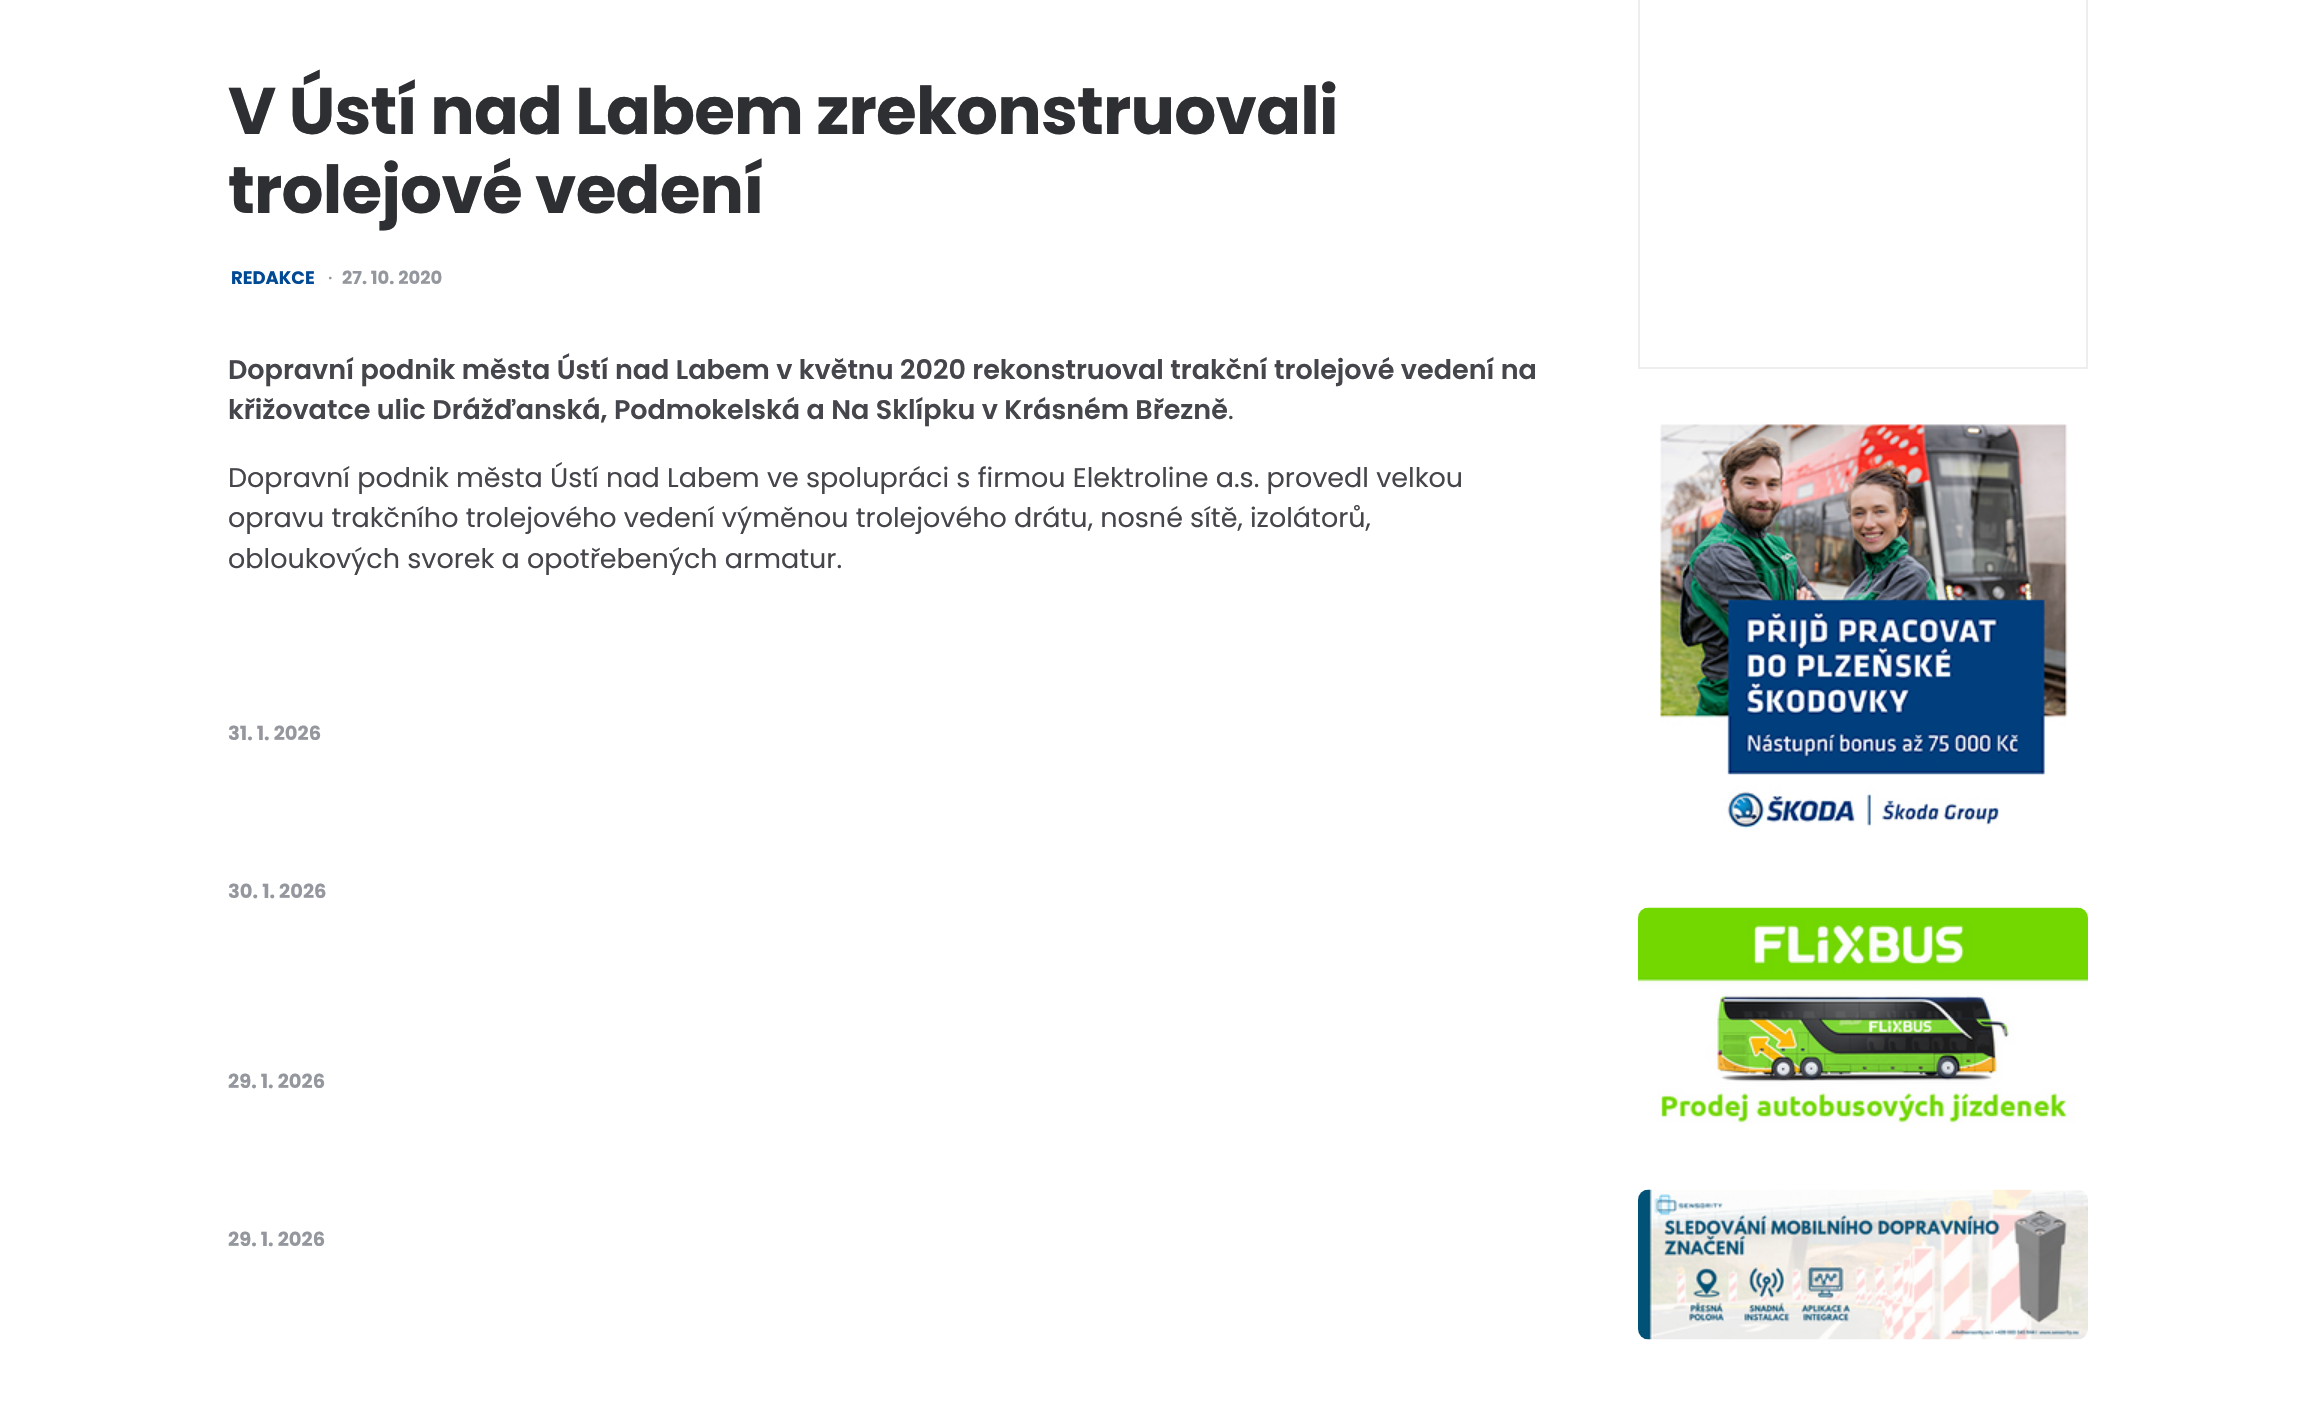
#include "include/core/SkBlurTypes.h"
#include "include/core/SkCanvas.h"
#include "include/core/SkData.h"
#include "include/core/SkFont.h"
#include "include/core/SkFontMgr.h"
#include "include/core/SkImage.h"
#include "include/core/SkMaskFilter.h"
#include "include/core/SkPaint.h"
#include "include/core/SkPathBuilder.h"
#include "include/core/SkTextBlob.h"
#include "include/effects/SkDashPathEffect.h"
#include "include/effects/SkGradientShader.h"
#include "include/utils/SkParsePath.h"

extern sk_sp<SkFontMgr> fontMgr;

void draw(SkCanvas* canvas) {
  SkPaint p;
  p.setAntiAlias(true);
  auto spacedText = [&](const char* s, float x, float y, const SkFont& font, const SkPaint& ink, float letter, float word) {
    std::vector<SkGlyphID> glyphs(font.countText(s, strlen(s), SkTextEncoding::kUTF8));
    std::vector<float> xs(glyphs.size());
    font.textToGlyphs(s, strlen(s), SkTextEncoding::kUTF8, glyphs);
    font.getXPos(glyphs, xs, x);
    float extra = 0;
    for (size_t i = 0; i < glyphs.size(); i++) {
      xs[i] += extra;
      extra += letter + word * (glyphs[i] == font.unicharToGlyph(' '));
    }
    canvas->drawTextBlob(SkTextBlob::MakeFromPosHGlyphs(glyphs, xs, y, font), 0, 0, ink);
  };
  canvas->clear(SK_ColorWHITE);
  p.setStyle(SkPaint::kStroke_Style);
  p.setStrokeWidth(2);
  p.setColor(SkColorSetRGB(238, 238, 238));
  canvas->drawRect(SkRect::MakeLTRB(1639, -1, 2087, 368), p);
  canvas->drawImageRect(SkImages::DeferredFromEncodedData(SkData::MakeFromFileName("images/1.png")), SkRect::MakeLTRB(1660, 423, 2068, 829), SkSamplingOptions());
  canvas->drawImageRect(SkImages::DeferredFromEncodedData(SkData::MakeFromFileName("images/2.png")), SkRect::MakeLTRB(1638, 907, 2088, 1125), SkSamplingOptions());
  canvas->drawImageRect(SkImages::DeferredFromEncodedData(SkData::MakeFromFileName("images/3.png")), SkRect::MakeLTRB(1638, 1189, 2088, 1340), SkSamplingOptions());
  SkFont font1(fontMgr->matchFamilyStyle("Poppins", SkFontStyle::Bold()), 66);
  font1.setSubpixel(true);
  p.setStyle(SkPaint::kFill_Style);
  p.setColor(SkColorSetRGB(46, 47, 51));
  spacedText("V Ústí nad Labem zrekonstruovali", 228, 134, font1, p, -0.75f, 0);
  spacedText("trolejové vedení", 228, 213, font1, p, -0.75f, 0);
  SkFont font2(fontMgr->matchFamilyStyle("Poppins", SkFontStyle::Bold()), 18);
  font2.setSubpixel(true);
  p.setColor(SkColorSetRGB(0, 74, 149));
  canvas->drawString("REDAKCE", 231, 284, font2, p);
  SkFont font3(fontMgr->matchFamilyStyle("Poppins", SkFontStyle(500, SkFontStyle::kNormal_Width, SkFontStyle::kUpright_Slant)), 18);
  font3.setSubpixel(true);
  p.setColor(SkColorSetRGB(148, 151, 158));
  canvas->drawString("·", 328, 284, font3, p);
  canvas->drawString("27. 10. 2020", 342, 284, font2, p);
  SkFont font4(fontMgr->matchFamilyStyle("Poppins", SkFontStyle(600, SkFontStyle::kNormal_Width, SkFontStyle::kUpright_Slant)), 27);
  font4.setSubpixel(true);
  p.setColor(SkColorSetRGB(69, 70, 75));
  canvas->drawString("Dopravní podnik města Ústí nad Labem v květnu 2020 rekonstruoval trakční trolejové vedení na", 228, 379, font4, p);
  canvas->drawString("křižovatce ulic Drážďanská, Podmokelská a Na Sklípku v Krásném Březně", 228, 419, font4, p);
  SkFont font5(fontMgr->matchFamilyStyle("Poppins", SkFontStyle::Normal()), 27);
  font5.setSubpixel(true);
  canvas->drawString(".", 1228, 419, font5, p);
  canvas->drawString("Dopravní podnik města Ústí nad Labem ve spolupráci s firmou Elektroline a.s. provedl velkou", 228, 487, font5, p);
  canvas->drawString("opravu trakčního trolejového vedení výměnou trolejového drátu, nosné sítě, izolátorů,", 228, 527, font5, p);
  canvas->drawString("obloukových svorek a opotřebených armatur.", 228, 568, font5, p);
  SkFont font6(fontMgr->matchFamilyStyle("Poppins", SkFontStyle::Bold()), 19.5f);
  font6.setSubpixel(true);
  p.setColor(SkColorSetRGB(148, 151, 158));
  canvas->drawString("31. 1. 2026", 228, 740, font6, p);
  canvas->drawString("30. 1. 2026", 228, 898, font6, p);
  canvas->drawString("29. 1. 2026", 228, 1088, font6, p);
  canvas->drawString("29. 1. 2026", 228, 1246, font6, p);
}
